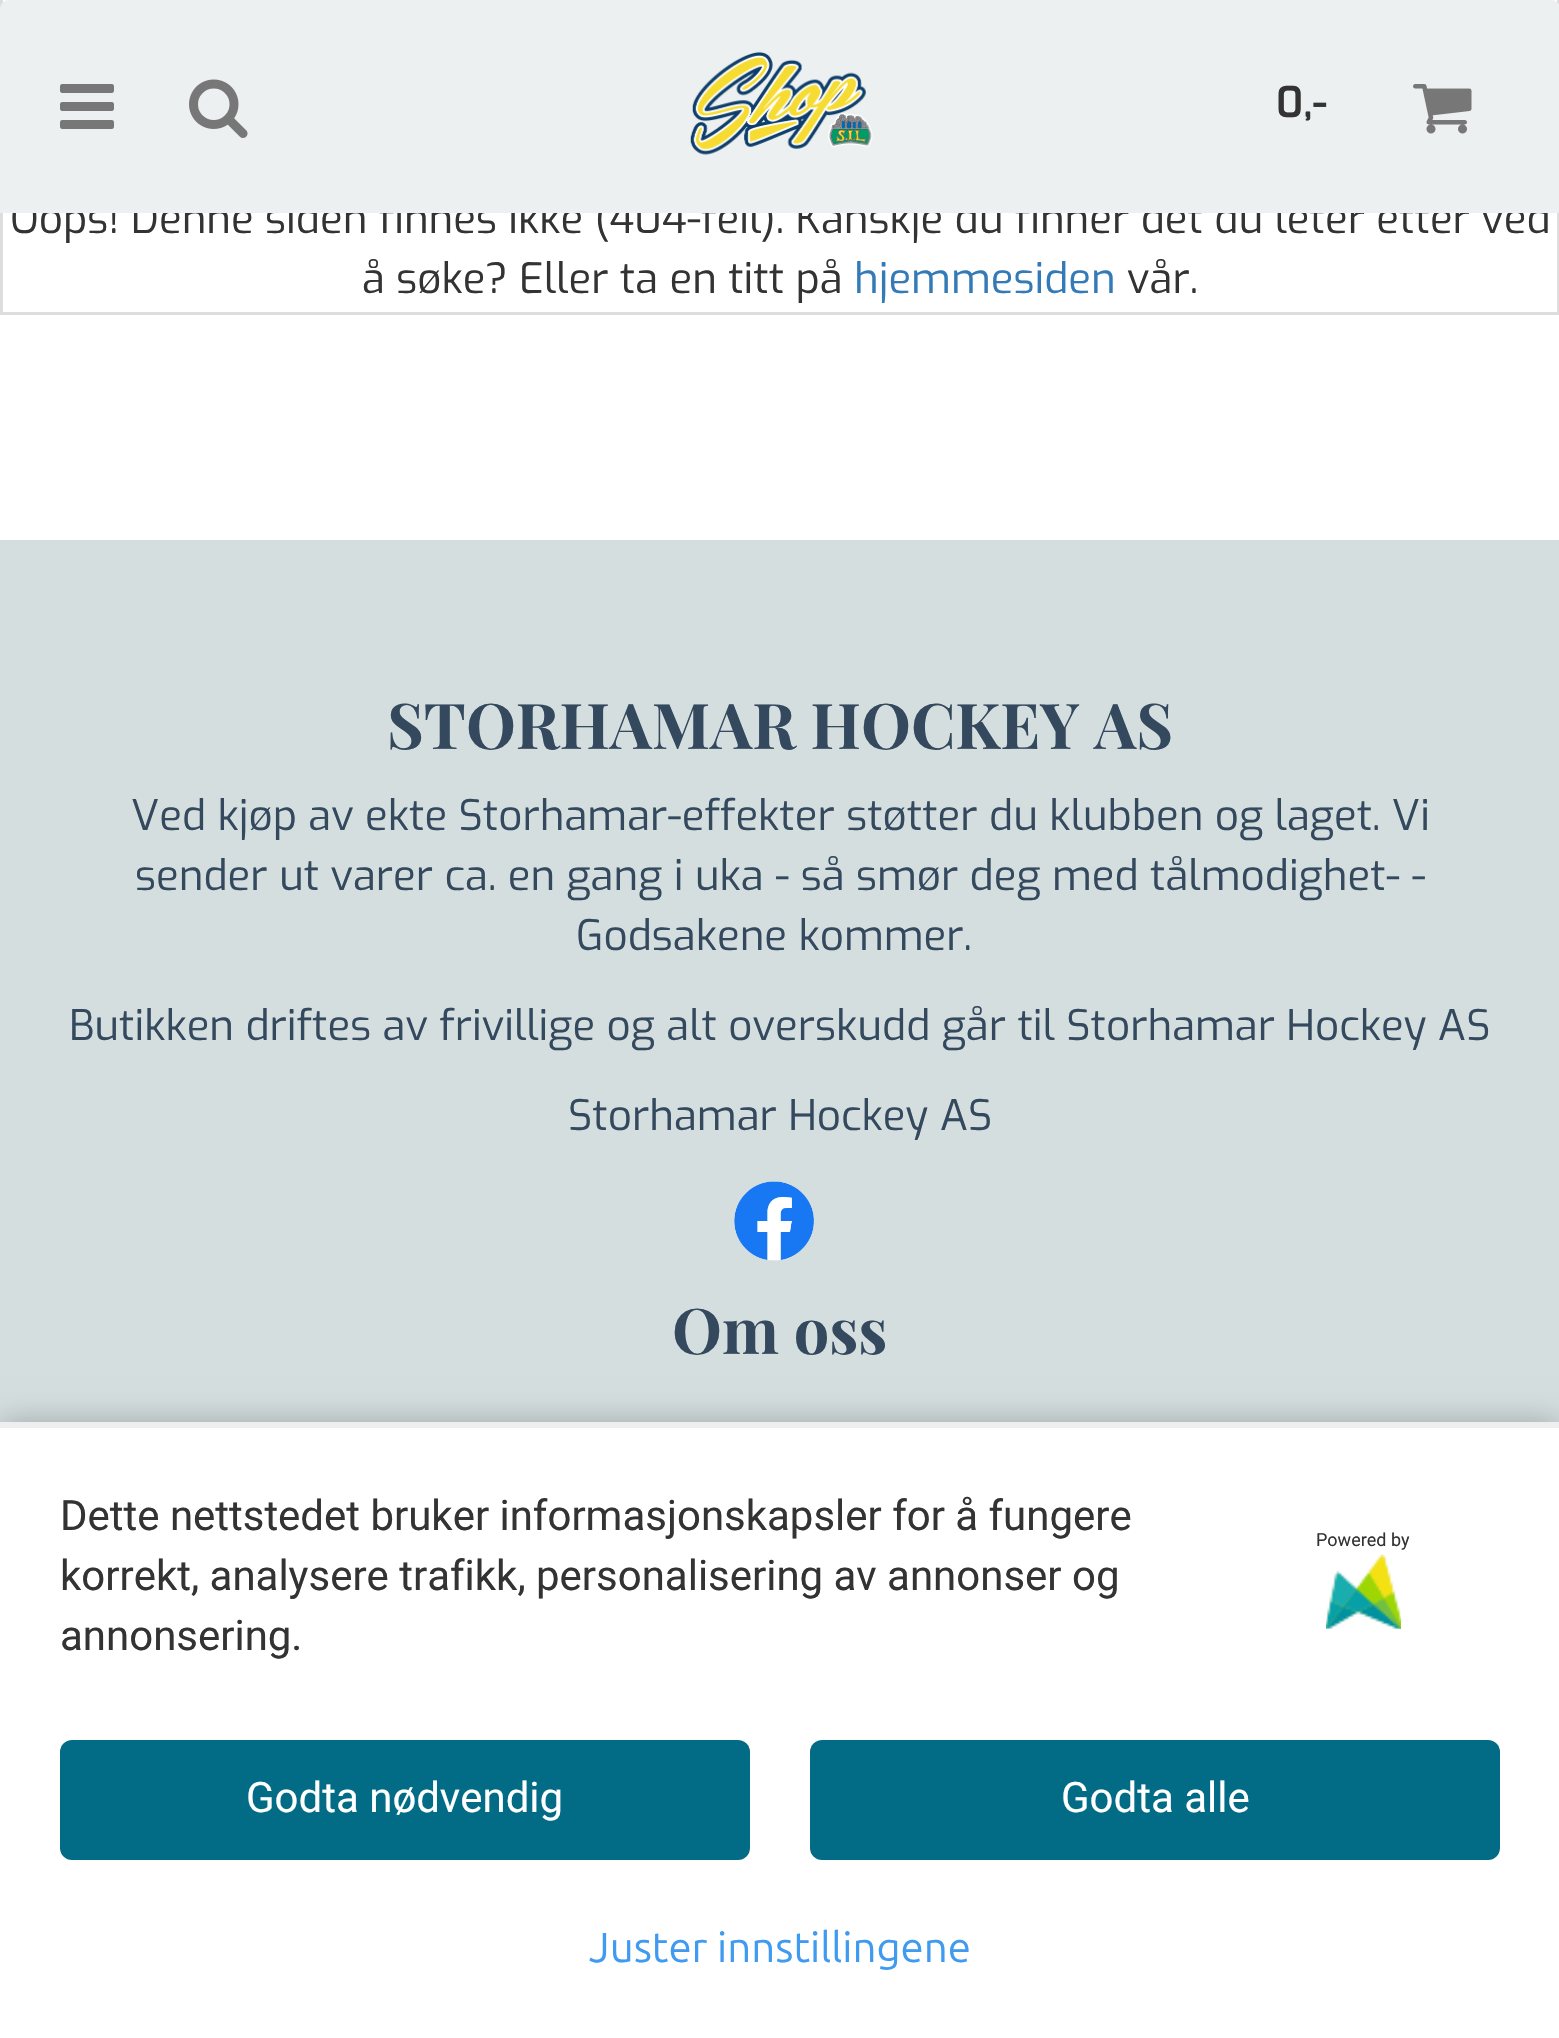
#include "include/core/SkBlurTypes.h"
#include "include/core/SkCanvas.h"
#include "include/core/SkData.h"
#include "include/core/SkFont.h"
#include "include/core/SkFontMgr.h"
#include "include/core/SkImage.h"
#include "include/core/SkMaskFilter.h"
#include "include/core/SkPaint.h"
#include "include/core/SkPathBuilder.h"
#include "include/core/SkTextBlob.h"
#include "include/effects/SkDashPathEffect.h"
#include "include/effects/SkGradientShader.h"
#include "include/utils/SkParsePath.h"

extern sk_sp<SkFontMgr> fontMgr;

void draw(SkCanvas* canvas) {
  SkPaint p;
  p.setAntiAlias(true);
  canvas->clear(SK_ColorWHITE);
  p.setColor(SkColorSetRGB(221, 221, 221));
  canvas->drawPath(SkPathBuilder().moveTo(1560, -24).lineTo(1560, 315).lineTo(1557, 312).lineTo(1557, -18).close().detach(), p);
  canvas->drawRect(SkRect::MakeLTRB(0, 312, 1559, 315), p);
  canvas->drawPath(SkPathBuilder().moveTo(0, 315).lineTo(0, -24).lineTo(3, -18).lineTo(3, 312).close().detach(), p);
  p.setColor(SkColorSetRGB(212, 222, 222));
  canvas->drawRect(SkRect::MakeLTRB(0, 540, 1559, 1422), p);
  canvas->drawImageRect(SkImages::DeferredFromEncodedData(SkData::MakeFromFileName("images/5.png")), SkRect::MakeLTRB(734, 1181, 814, 1261), SkSamplingOptions());
  p.setColor(SkColorSetARGB(64, 0, 0, 0));
  p.setMaskFilter(SkMaskFilter::MakeBlur(kNormal_SkBlurStyle, 15));
  canvas->drawRect(SkRect::MakeLTRB(0, 1422, 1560, 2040), p);
  p.setMaskFilter(nullptr);
  p.setColor(SK_ColorWHITE);
  canvas->drawRect(SkRect::MakeLTRB(0, 1428, 1559, 2038), p);
  p.setColor(SkColorSetRGB(238, 238, 238));
  canvas->drawRect(SkRect::MakeLTRB(0, 1422, 1559, 1428), p);
  canvas->drawImageRect(SkImages::DeferredFromEncodedData(SkData::MakeFromFileName("images/6.png")), SkRect::MakeLTRB(1326, 1554, 1401, 1629), SkSamplingOptions());
  p.setColor(SkColorSetRGB(2, 107, 133));
  canvas->drawRoundRect(SkRect::MakeLTRB(60, 1740, 750, 1860), 12, 12, p);
  canvas->drawRoundRect(SkRect::MakeLTRB(810, 1740, 1500, 1860), 12, 12, p);
  SkFont font1(fontMgr->matchFamilyStyle("Exo", SkFontStyle::Normal()), 42);
  font1.setSubpixel(true);
  p.setColor(SkColorSetRGB(51, 51, 51));
  canvas->drawString("Oops! Denne siden finnes ikke (404-feil). Kanskje du finner det du leter etter ved", 10, 233, font1, p);
  p.setColor(SkColorSetRGB(236, 240, 241));
  canvas->drawPath(SkPathBuilder().moveTo(9, 0).lineTo(1551, 0).cubicTo(1556, 0, 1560, 4, 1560, 9).lineTo(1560, 213).lineTo(0, 213).lineTo(0, 9).cubicTo(0, 4, 4, 0, 9, 0).close().detach(), p);
  canvas->drawImageRect(SkImages::DeferredFromEncodedData(SkData::MakeFromFileName("images/4.png")), SkRect::MakeLTRB(1413, 84, 1472, 134), SkSamplingOptions());
  SkFont font2(fontMgr->matchFamilyStyle("Exo", SkFontStyle(600, SkFontStyle::kNormal_Width, SkFontStyle::kUpright_Slant)), 42);
  font2.setSubpixel(true);
  p.setColor(SkColorSetRGB(51, 51, 51));
  canvas->drawString("0,-", 1276, 117, font2, p);
  canvas->drawImageRect(SkImages::DeferredFromEncodedData(SkData::MakeFromFileName("images/3.png")), SkRect::MakeLTRB(690, 51, 873, 155), SkSamplingOptions());
  canvas->drawImageRect(SkImages::DeferredFromEncodedData(SkData::MakeFromFileName("images/2.png")), SkRect::MakeLTRB(189, 79, 248, 138), SkSamplingOptions());
  canvas->drawImageRect(SkImages::DeferredFromEncodedData(SkData::MakeFromFileName("images/1.png")), SkRect::MakeLTRB(60, 84, 114, 129), SkSamplingOptions());
  canvas->drawString("å søke? Eller ta en titt på", 362, 293, font1, p);
  p.setColor(SkColorSetRGB(51, 122, 183));
  canvas->drawString("hjemmesiden", 854, 293, font1, p);
  p.setColor(SkColorSetRGB(51, 51, 51));
  canvas->drawString("vår.", 1127, 293, font1, p);
  SkFont font3(fontMgr->matchFamilyStyle("Playfair Display", SkFontStyle::Bold()), 63);
  font3.setSubpixel(true);
  p.setColor(SkColorSetRGB(52, 73, 94));
  canvas->drawString("STORHAMAR HOCKEY AS", 387, 749, font3, p);
  canvas->drawString("Ved kjøp av ekte Storhamar-effekter støtter du klubben og laget. Vi", 131, 830, font1, p);
  canvas->drawString("sender ut varer ca. en gang i uka - så smør deg med tålmodighet- -", 135, 890, font1, p);
  canvas->drawString("Godsakene kommer.", 576, 950, font1, p);
  canvas->drawString("Butikken driftes av frivillige og alt overskudd går til Storhamar Hockey AS", 69, 1040, font1, p);
  canvas->drawString("Storhamar Hockey AS", 568, 1130, font1, p);
  canvas->drawString("Om oss", 672, 1354, font3, p);
  SkFont font4(fontMgr->matchFamilyStyle("Roboto", SkFontStyle::Normal()), 42);
  font4.setSubpixel(true);
  p.setColor(SkColorSetRGB(51, 51, 51));
  canvas->drawString("Dette nettstedet bruker informasjonskapsler for å fungere", 60, 1530, font4, p);
  canvas->drawString("korrekt, analysere trafikk, personalisering av annonser og", 60, 1590, font4, p);
  canvas->drawString("annonsering.", 60, 1650, font4, p);
  SkFont font5(fontMgr->matchFamilyStyle("Roboto", SkFontStyle::Normal()), 18);
  font5.setSubpixel(true);
  canvas->drawString("Powered by", 1316, 1546, font5, p);
  p.setColor(SK_ColorWHITE);
  canvas->drawString("Godta nødvendig", 246, 1812, font4, p);
  canvas->drawString("Godta alle", 1061, 1812, font4, p);
  SkFont font6(fontMgr->matchFamilyStyle("Ubuntu", SkFontStyle::Normal()), 42);
  font6.setSubpixel(true);
  p.setColor(SkColorSetRGB(64, 154, 239));
  canvas->drawString("Juster innstillingene", 589, 1962, font6, p);
}
